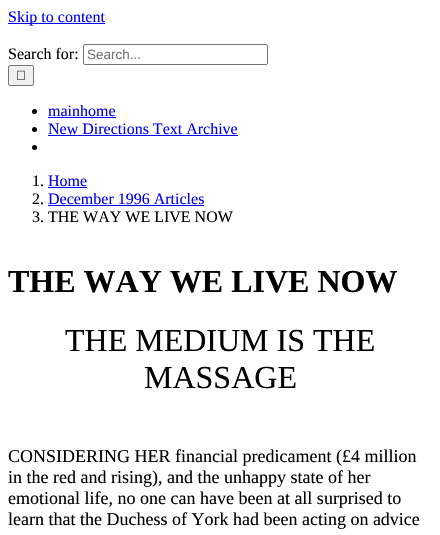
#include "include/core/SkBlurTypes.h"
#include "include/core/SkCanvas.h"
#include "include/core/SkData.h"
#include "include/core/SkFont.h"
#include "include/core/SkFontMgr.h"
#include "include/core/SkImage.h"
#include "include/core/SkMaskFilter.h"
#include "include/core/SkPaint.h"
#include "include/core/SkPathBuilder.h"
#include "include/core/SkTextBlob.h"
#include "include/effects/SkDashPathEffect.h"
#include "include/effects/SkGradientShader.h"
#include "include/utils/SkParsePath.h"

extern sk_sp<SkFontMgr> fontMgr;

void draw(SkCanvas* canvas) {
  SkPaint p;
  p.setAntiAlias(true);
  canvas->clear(SK_ColorWHITE);
  p.setColor(SkColorSetRGB(0, 0, 238));
  canvas->drawRect(SkRect::MakeLTRB(8, 23, 105, 24), p);
  p.setStyle(SkPaint::kStroke_Style);
  p.setStrokeWidth(1);
  p.setColor(SkColorSetRGB(118, 118, 118));
  canvas->drawRoundRect(SkRect::MakeLTRB(83.5f, 44.5f, 267.5f, 64.5f), 1.5f, 1.5f, p);
  p.setStyle(SkPaint::kFill_Style);
  p.setColor(SkColorSetRGB(239, 239, 239));
  canvas->drawRoundRect(SkRect::MakeLTRB(8.5f, 65.5f, 33.5f, 85.5f), 1.5f, 1.5f, p);
  p.setStyle(SkPaint::kStroke_Style);
  p.setColor(SkColorSetRGB(118, 118, 118));
  canvas->drawRoundRect(SkRect::MakeLTRB(8.5f, 65.5f, 33.5f, 85.5f), 1.5f, 1.5f, p);
  canvas->drawImageRect(SkImages::DeferredFromEncodedData(SkData::MakeFromFileName("images/1.png")), SkRect::MakeLTRB(17, 70, 25, 80), SkSamplingOptions());
  p.setStyle(SkPaint::kFill_Style);
  p.setColor(SK_ColorBLACK);
  canvas->drawCircle(34.5f, 111.5f, 2.5f, p);
  p.setColor(SkColorSetRGB(0, 0, 238));
  canvas->drawRect(SkRect::MakeLTRB(48, 117, 116, 118), p);
  p.setColor(SK_ColorBLACK);
  canvas->drawCircle(34.5f, 129.5f, 2.5f, p);
  p.setColor(SkColorSetRGB(0, 0, 238));
  canvas->drawRect(SkRect::MakeLTRB(48, 135, 238, 136), p);
  p.setColor(SK_ColorBLACK);
  canvas->drawCircle(34.5f, 147.5f, 2.5f, p);
  p.setColor(SkColorSetRGB(0, 0, 238));
  canvas->drawRect(SkRect::MakeLTRB(48, 187, 87, 188), p);
  canvas->drawRect(SkRect::MakeLTRB(48, 205, 204, 206), p);
  SkFont font1(fontMgr->matchFamilyStyle("Liberation Serif", SkFontStyle::Normal()), 16);
  font1.setSubpixel(true);
  canvas->drawString("Skip to content", 8, 22, font1, p);
  p.setColor(SK_ColorBLACK);
  canvas->drawString("Search for:", 8, 59, font1, p);
  SkFont font2(fontMgr->matchFamilyStyle("Liberation Sans", SkFontStyle::Normal()), 13.5f);
  font2.setSubpixel(true);
  p.setColor(SkColorSetRGB(117, 117, 117));
  canvas->drawString("Search...", 87, 59, font2, p);
  p.setColor(SkColorSetRGB(0, 0, 238));
  canvas->drawString("mainhome", 48, 116, font1, p);
  canvas->drawString("New Directions Text Archive", 48, 134, font1, p);
  p.setColor(SK_ColorBLACK);
  canvas->drawString("1.", 32, 186, font1, p);
  p.setColor(SkColorSetRGB(0, 0, 238));
  canvas->drawString("Home", 48, 186, font1, p);
  p.setColor(SK_ColorBLACK);
  canvas->drawString("2.", 32, 204, font1, p);
  p.setColor(SkColorSetRGB(0, 0, 238));
  canvas->drawString("December 1996 Articles", 48, 204, font1, p);
  p.setColor(SK_ColorBLACK);
  canvas->drawString("3. THE WAY WE LIVE NOW", 32, 222, font1, p);
  SkFont font3(fontMgr->matchFamilyStyle("Liberation Serif", SkFontStyle::Bold()), 32);
  font3.setSubpixel(true);
  canvas->drawString("THE WAY WE LIVE NOW", 8, 292, font3, p);
  SkFont font4(fontMgr->matchFamilyStyle("Liberation Serif", SkFontStyle::Normal()), 32);
  font4.setSubpixel(true);
  canvas->drawString("THE MEDIUM IS THE", 65, 351, font4, p);
  canvas->drawString("MASSAGE", 144, 388, font4, p);
  SkFont font5(fontMgr->matchFamilyStyle("Liberation Serif", SkFontStyle::Normal()), 18);
  font5.setSubpixel(true);
  canvas->drawString("CONSIDERING HER financial predicament (£4 million", 8, 462, font5, p);
  canvas->drawString("in the red and rising), and the unhappy state of her", 8, 483, font5, p);
  canvas->drawString("emotional life, no one can have been at all surprised to", 8, 504, font5, p);
  canvas->drawString("learn that the Duchess of York had been acting on advice", 8, 525, font5, p);
}
